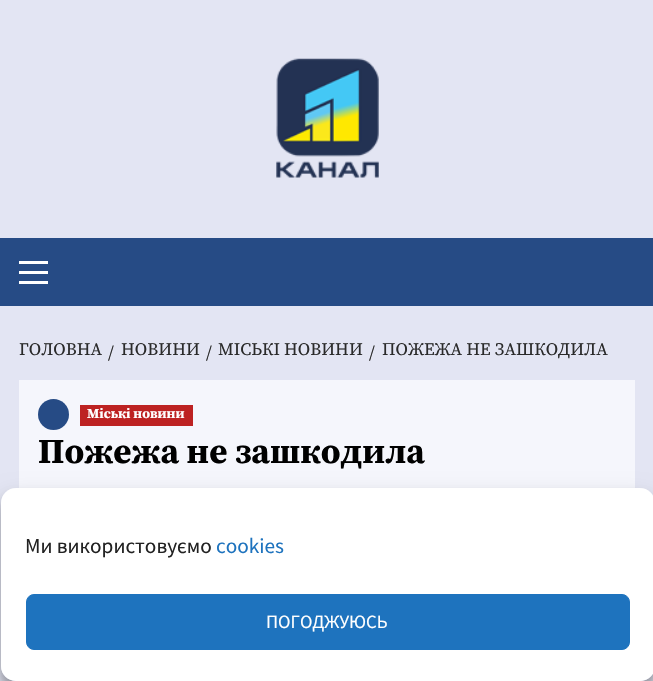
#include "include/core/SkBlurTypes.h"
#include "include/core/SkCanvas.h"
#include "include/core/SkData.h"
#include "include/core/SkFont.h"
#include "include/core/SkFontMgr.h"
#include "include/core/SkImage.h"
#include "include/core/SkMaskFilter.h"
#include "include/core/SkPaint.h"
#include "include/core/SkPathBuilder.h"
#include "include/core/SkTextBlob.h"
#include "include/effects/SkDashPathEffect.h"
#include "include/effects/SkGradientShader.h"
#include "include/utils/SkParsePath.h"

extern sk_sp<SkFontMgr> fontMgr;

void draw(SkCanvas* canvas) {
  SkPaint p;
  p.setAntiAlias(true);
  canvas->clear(SkColorSetRGB(227, 229, 243));
  canvas->drawImageRect(SkImages::DeferredFromEncodedData(SkData::MakeFromFileName("images/1.png")), SkRect::MakeLTRB(276, 58, 379, 178), SkSamplingOptions());
  p.setColor(SkColorSetRGB(38, 75, 133));
  canvas->drawRect(SkRect::MakeLTRB(0, 238, 653, 306), p);
  p.setColor(SK_ColorWHITE);
  canvas->drawRect(SkRect::MakeLTRB(19, 271, 48, 274), p);
  canvas->drawRect(SkRect::MakeLTRB(19, 261, 48, 264), p);
  canvas->drawRect(SkRect::MakeLTRB(19, 281, 48, 284), p);
  p.setColor(SkColorSetRGB(245, 246, 252));
  canvas->drawRect(SkRect::MakeLTRB(19, 380, 635, 488), p);
  p.setColor(SkColorSetRGB(38, 75, 133));
  canvas->drawCircle(53.5f, 414.5f, 15.5f, p);
  p.setColor(SkColorSetRGB(189, 34, 34));
  canvas->drawRect(SkRect::MakeLTRB(80, 405, 193, 426), p);
  canvas->save();
  canvas->clipPath(SkPathBuilder(SkPathFillType::kEvenOdd).moveTo(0, 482).lineTo(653, 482).lineTo(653, 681).lineTo(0, 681).close().moveTo(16, 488).lineTo(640, 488).cubicTo(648.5f, 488, 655, 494.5f, 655, 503).lineTo(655, 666).cubicTo(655, 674.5f, 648.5f, 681, 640, 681).lineTo(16, 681).cubicTo(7.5f, 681, 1, 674.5f, 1, 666).lineTo(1, 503).cubicTo(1, 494.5f, 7.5f, 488, 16, 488).close().detach(), true);
  p.setColor(SkColorSetARGB(59, 0, 0, 0));
  p.setMaskFilter(SkMaskFilter::MakeBlur(kNormal_SkBlurStyle, 4));
  canvas->drawRoundRect(SkRect::MakeLTRB(1, 495, 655, 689), 15, 15, p);
  p.setMaskFilter(nullptr);
  canvas->restore();
  canvas->save();
  canvas->clipPath(SkPathBuilder(SkPathFillType::kEvenOdd).moveTo(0, 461).lineTo(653, 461).lineTo(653, 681).lineTo(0, 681).close().moveTo(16, 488).lineTo(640, 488).cubicTo(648.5f, 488, 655, 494.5f, 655, 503).lineTo(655, 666).cubicTo(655, 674.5f, 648.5f, 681, 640, 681).lineTo(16, 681).cubicTo(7.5f, 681, 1, 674.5f, 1, 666).lineTo(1, 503).cubicTo(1, 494.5f, 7.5f, 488, 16, 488).close().detach(), true);
  p.setColor(SkColorSetARGB(48, 0, 0, 0));
  p.setMaskFilter(SkMaskFilter::MakeBlur(kNormal_SkBlurStyle, 12.5f));
  canvas->drawRoundRect(SkRect::MakeLTRB(1, 500, 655, 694), 15, 15, p);
  p.setMaskFilter(nullptr);
  canvas->restore();
  p.setColor(SK_ColorWHITE);
  canvas->drawRoundRect(SkRect::MakeLTRB(1, 488, 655, 681), 15, 15, p);
  p.setColor(SkColorSetRGB(30, 115, 190));
  canvas->drawRoundRect(SkRect::MakeLTRB(26.5f, 594.5f, 629.5f, 649.5f), 7.5f, 7.5f, p);
  p.setStyle(SkPaint::kStroke_Style);
  p.setStrokeWidth(1);
  canvas->drawRoundRect(SkRect::MakeLTRB(26.5f, 594.5f, 629.5f, 649.5f), 7.5f, 7.5f, p);
  SkFont font1(fontMgr->matchFamilyStyle("Source Serif Pro", SkFontStyle::Normal()), 17.5f);
  font1.setSubpixel(true);
  p.setStyle(SkPaint::kFill_Style);
  p.setColor(SkColorSetRGB(42, 42, 42));
  canvas->drawString("ГОЛОВНА", 19, 355, font1, p);
  canvas->drawString("/", 108, 358, font1, p);
  canvas->drawString("НОВИНИ", 121, 355, font1, p);
  canvas->drawString("/", 206, 358, font1, p);
  canvas->drawString("MІСЬКІ НОВИНИ", 218, 355, font1, p);
  canvas->drawString("/", 369, 358, font1, p);
  canvas->drawString("ПОЖЕЖА НЕ ЗАШКОДИЛА", 382, 355, font1, p);
  SkFont font2(fontMgr->matchFamilyStyle("Source Serif Pro", SkFontStyle::Bold()), 13.75f);
  font2.setSubpixel(true);
  p.setColor(SK_ColorWHITE);
  canvas->drawString("Mіські новини", 87, 418, font2, p);
  SkFont font3(fontMgr->matchFamilyStyle("Source Serif Pro", SkFontStyle::Bold()), 35);
  font3.setSubpixel(true);
  p.setColor(SK_ColorBLACK);
  canvas->drawString("Пожежа не зашкодила", 38, 463, font3, p);
  SkFont font4(fontMgr->matchFamilyStyle("Source Sans Pro", SkFontStyle::Normal()), 21.25f);
  font4.setSubpixel(true);
  p.setColor(SkColorSetRGB(34, 34, 34));
  canvas->drawString("Ми використовуємо", 25, 553, font4, p);
  p.setColor(SkColorSetRGB(30, 115, 190));
  canvas->drawString("cookies", 216, 553, font4, p);
  SkFont font5(fontMgr->matchFamilyStyle("Source Sans Pro", SkFontStyle::Normal()), 18.75f);
  font5.setSubpixel(true);
  p.setColor(SK_ColorWHITE);
  canvas->drawString("ПОГОДЖУЮСЬ", 266, 628, font5, p);
}
